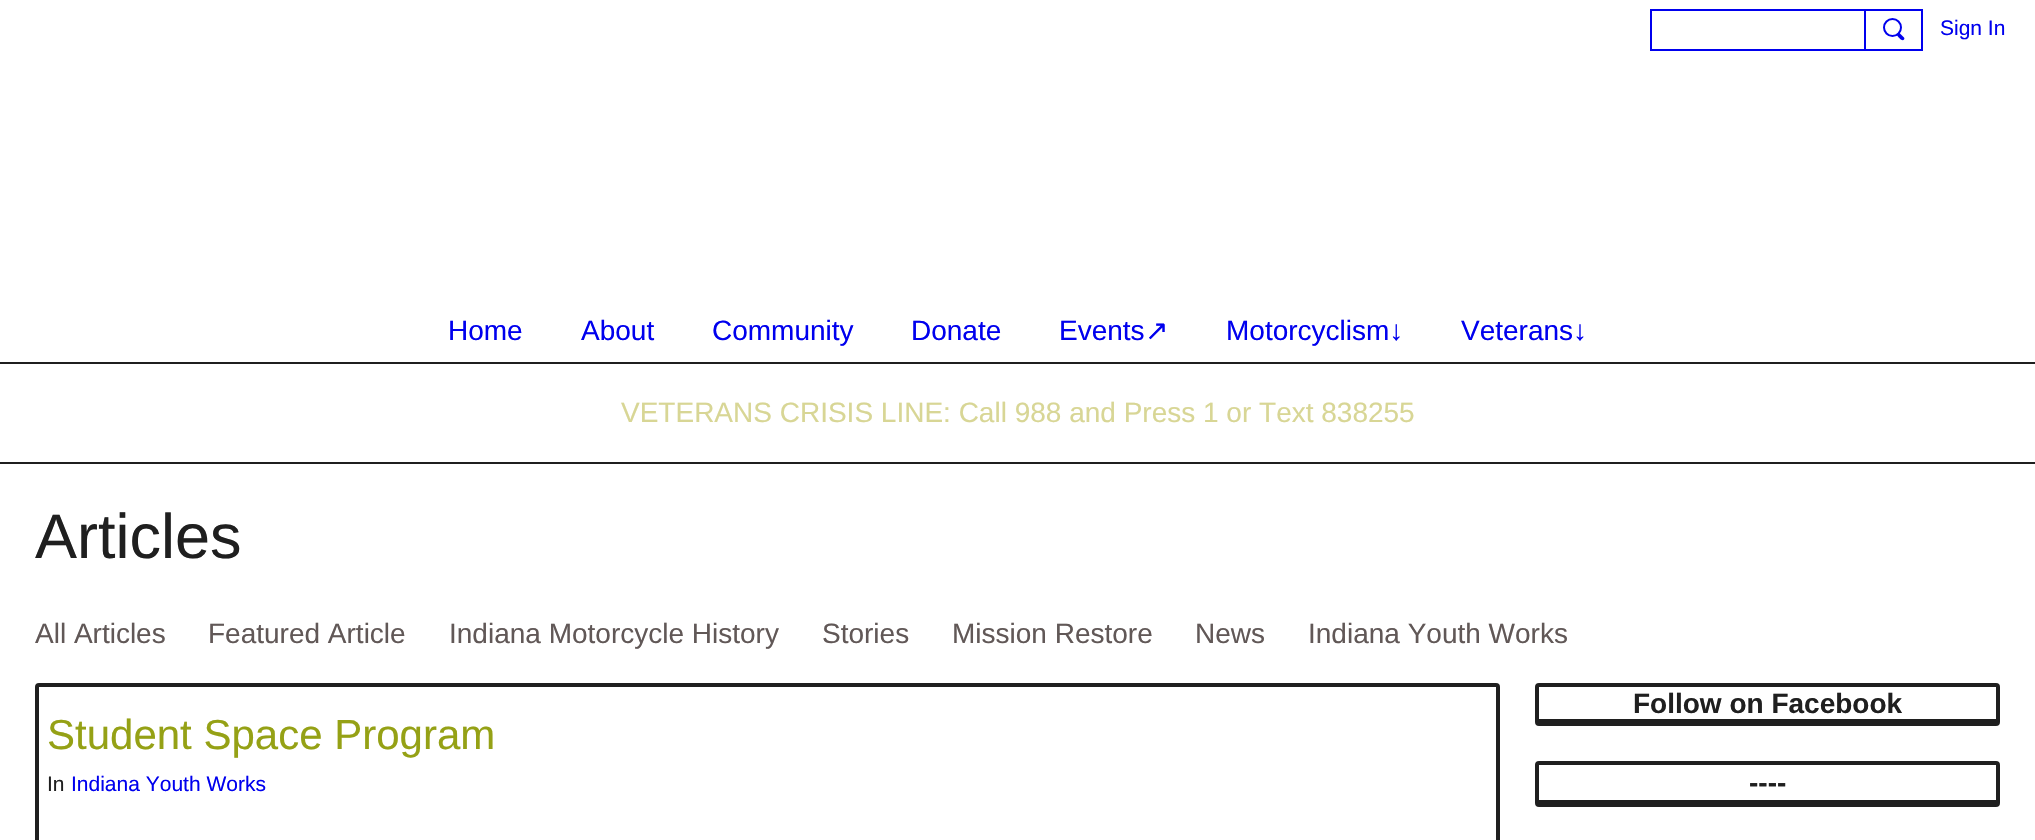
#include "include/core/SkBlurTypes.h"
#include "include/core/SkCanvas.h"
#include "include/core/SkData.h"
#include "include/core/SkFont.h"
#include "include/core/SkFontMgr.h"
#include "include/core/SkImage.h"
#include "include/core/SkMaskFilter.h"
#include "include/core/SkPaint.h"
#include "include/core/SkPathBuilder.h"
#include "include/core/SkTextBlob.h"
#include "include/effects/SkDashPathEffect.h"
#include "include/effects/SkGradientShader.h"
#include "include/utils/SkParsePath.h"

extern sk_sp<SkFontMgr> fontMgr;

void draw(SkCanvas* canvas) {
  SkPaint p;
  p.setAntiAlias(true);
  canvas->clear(SK_ColorWHITE);
  p.setStyle(SkPaint::kStroke_Style);
  p.setStrokeWidth(2);
  p.setColor(SkColorSetRGB(0, 0, 238));
  canvas->drawRect(SkRect::MakeLTRB(1651, 10, 1865, 50), p);
  canvas->drawRect(SkRect::MakeLTRB(1865, 10, 1922, 50), p);
  canvas->drawCircle(1892.5f, 27.5f, 8.5f, p);
  p.setStyle(SkPaint::kFill_Style);
  canvas->drawPath(SkPathBuilder().moveTo(1900, 33.5f).lineTo(1904, 37.5f).cubicTo(1904.5f, 38, 1904.5f, 39, 1904, 39.5f).cubicTo(1902.5f, 42, 1898.5f, 37.5f, 1897.5f, 36).cubicTo(1896, 34.5f, 1898.5f, 32, 1900, 33.5f).close().detach(), p);
  p.setColor(SkColorSetRGB(31, 31, 31));
  canvas->drawRect(SkRect::MakeLTRB(0, 362, 2035, 364), p);
  canvas->drawRect(SkRect::MakeLTRB(0, 462, 2035, 464), p);
  p.setStyle(SkPaint::kStroke_Style);
  p.setStrokeWidth(4);
  canvas->drawRoundRect(SkRect::MakeLTRB(37, 685, 1498, 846), 2, 2, p);
  canvas->drawRoundRect(SkRect::MakeLTRB(1537, 685, 1998, 724), 2, 2, p);
  p.setStyle(SkPaint::kFill_Style);
  canvas->drawRect(SkRect::MakeLTRB(1538, 719, 1997, 722), p);
  p.setStyle(SkPaint::kStroke_Style);
  canvas->drawRoundRect(SkRect::MakeLTRB(1537, 763, 1998, 805), 2, 2, p);
  p.setStyle(SkPaint::kFill_Style);
  canvas->drawRect(SkRect::MakeLTRB(1538, 800, 1997, 803), p);
  SkFont font1(fontMgr->matchFamilyStyle("Liberation Sans", SkFontStyle::Normal()), 21);
  font1.setSubpixel(true);
  p.setColor(SkColorSetRGB(0, 0, 238));
  canvas->drawString("Sign In", 1940, 35, font1, p);
  SkFont font2(fontMgr->matchFamilyStyle("Liberation Sans", SkFontStyle::Normal()), 28);
  font2.setSubpixel(true);
  canvas->drawString("Home", 448, 340, font2, p);
  canvas->drawString("About", 581, 340, font2, p);
  canvas->drawString("Community", 712, 340, font2, p);
  canvas->drawString("Donate", 911, 340, font2, p);
  canvas->drawString("Events", 1059, 340, font2, p);
  SkFont font3(fontMgr->matchFamilyStyle("DejaVu Sans", SkFontStyle::Normal()), 28);
  font3.setSubpixel(true);
  canvas->drawString("↗", 1145, 340, font3, p);
  canvas->drawString("Motorcyclism↓", 1226, 340, font2, p);
  canvas->drawString("Veterans↓", 1461, 340, font2, p);
  p.setColor(SkColorSetRGB(216, 214, 149));
  canvas->drawString("VETERANS CRISIS LINE: Call 988 and Press 1 or Text 838255", 621, 422, font2, p);
  SkFont font4(fontMgr->matchFamilyStyle("Liberation Sans", SkFontStyle::Normal()), 63);
  font4.setSubpixel(true);
  p.setColor(SkColorSetRGB(31, 31, 31));
  canvas->drawString("Articles", 35, 558, font4, p);
  p.setColor(SkColorSetRGB(97, 88, 87));
  canvas->drawString("All Articles", 35, 643, font2, p);
  canvas->drawString("Featured Article", 208, 643, font2, p);
  canvas->drawString("Indiana Motorcycle History", 449, 643, font2, p);
  canvas->drawString("Stories", 822, 643, font2, p);
  canvas->drawString("Mission Restore", 952, 643, font2, p);
  canvas->drawString("News", 1195, 643, font2, p);
  canvas->drawString("Indiana Youth Works", 1308, 643, font2, p);
  SkFont font5(fontMgr->matchFamilyStyle("Liberation Sans", SkFontStyle::Normal()), 42);
  font5.setSubpixel(true);
  p.setColor(SkColorSetRGB(149, 161, 21));
  canvas->drawString("Student Space Program", 47, 749, font5, p);
  p.setColor(SkColorSetRGB(31, 31, 31));
  canvas->drawString("In", 47, 791, font1, p);
  p.setColor(SkColorSetRGB(0, 0, 238));
  canvas->drawString("Indiana Youth Works", 71, 791, font1, p);
  SkFont font6(fontMgr->matchFamilyStyle("Liberation Sans", SkFontStyle::Bold()), 28);
  font6.setSubpixel(true);
  p.setColor(SkColorSetRGB(31, 31, 31));
  canvas->drawString("Follow on Facebook", 1633, 713, font6, p);
  canvas->drawString("----", 1749, 792, font6, p);
}
